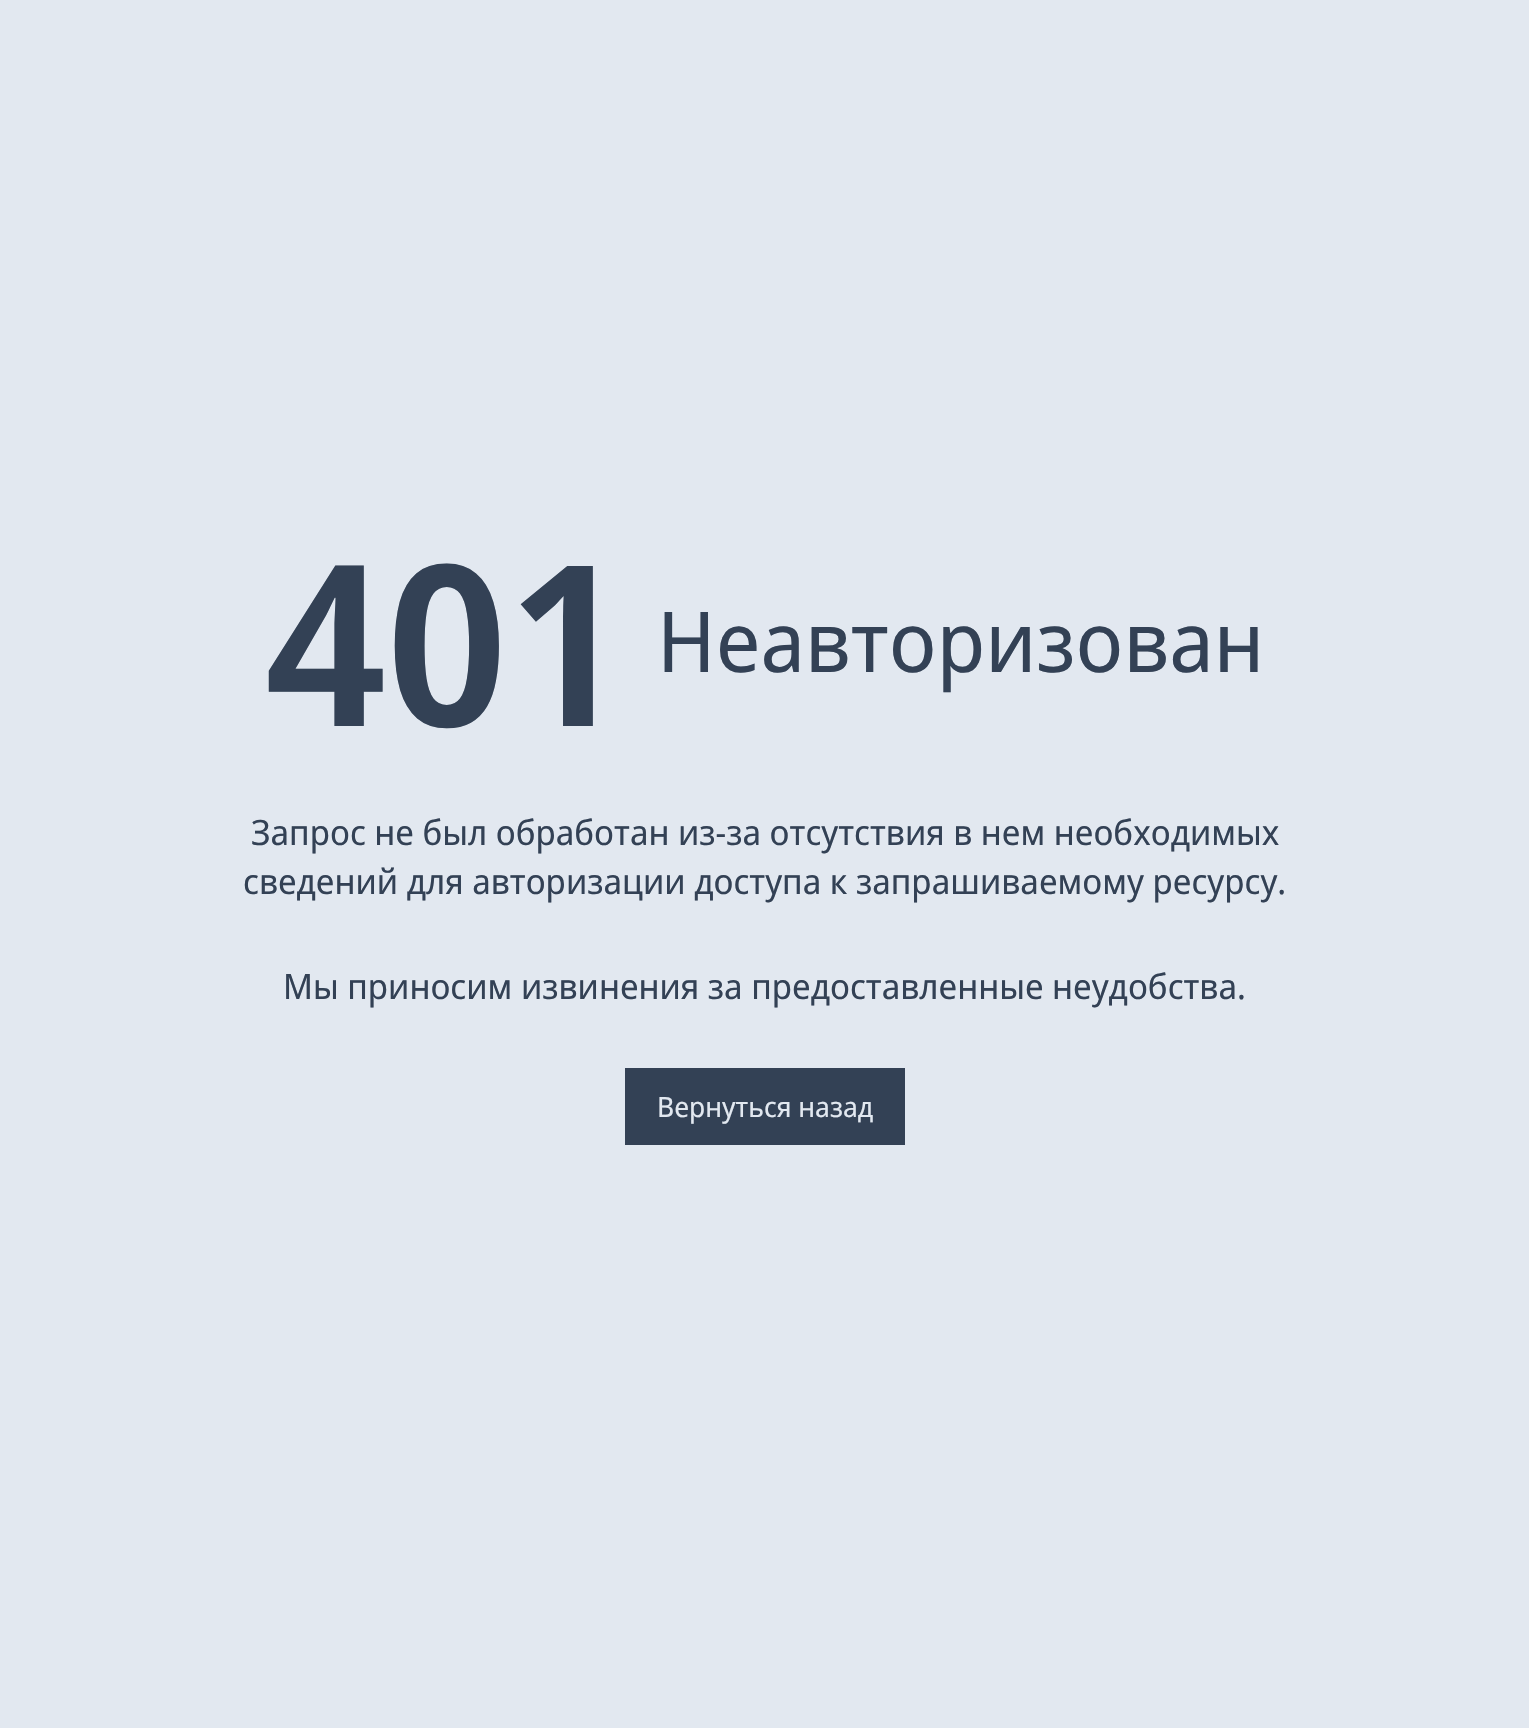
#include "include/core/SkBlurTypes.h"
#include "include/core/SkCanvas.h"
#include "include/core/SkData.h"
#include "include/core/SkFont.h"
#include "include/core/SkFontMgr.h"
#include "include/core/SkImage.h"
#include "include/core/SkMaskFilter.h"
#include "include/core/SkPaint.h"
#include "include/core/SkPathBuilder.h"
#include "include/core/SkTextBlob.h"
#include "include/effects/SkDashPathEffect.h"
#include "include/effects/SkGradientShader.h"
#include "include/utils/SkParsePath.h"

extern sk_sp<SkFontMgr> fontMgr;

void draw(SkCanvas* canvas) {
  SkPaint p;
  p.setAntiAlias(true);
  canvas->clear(SkColorSetRGB(226, 232, 240));
  p.setColor(SkColorSetRGB(51, 65, 85));
  canvas->drawRect(SkRect::MakeLTRB(625, 1068, 905, 1145), p);
  SkFont font1(fontMgr->matchFamilyStyle("Noto Sans Display", SkFontStyle(600, SkFontStyle::kNormal_Width, SkFontStyle::kUpright_Slant)), 224);
  font1.setSubpixel(true);
  canvas->drawString("401", 265, 726, font1, p);
  SkFont font2(fontMgr->matchFamilyStyle("Noto Sans Display", SkFontStyle::Normal()), 84);
  font2.setSubpixel(true);
  canvas->drawString("Неавторизован", 657, 672, font2, p);
  SkFont font3(fontMgr->matchFamilyStyle("Noto Sans Display", SkFontStyle::Normal()), 35);
  font3.setSubpixel(true);
  canvas->drawString("Запрос не был обработан из-за отсутствия в нем необходимых", 251, 845, font3, p);
  canvas->drawString("сведений для авторизации доступа к запрашиваемому ресурсу.", 243, 894, font3, p);
  canvas->drawString("Мы приносим извинения за предоставленные неудобства.", 283, 999, font3, p);
  SkFont font4(fontMgr->matchFamilyStyle("Noto Sans Display", SkFontStyle::Normal()), 28);
  font4.setSubpixel(true);
  p.setColor(SkColorSetRGB(226, 232, 240));
  canvas->drawString("Вернуться назад", 657, 1117, font4, p);
}
